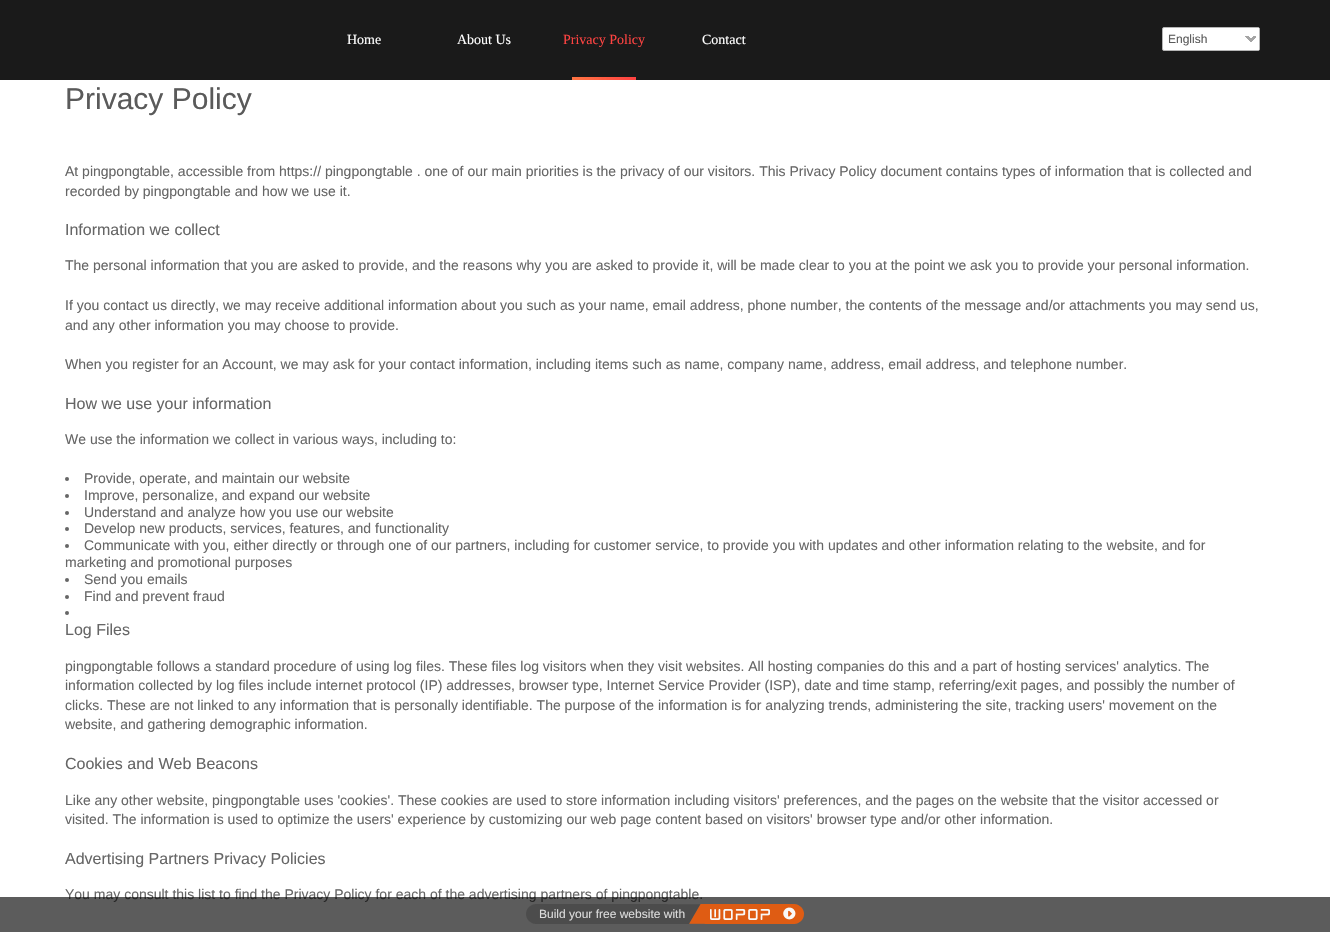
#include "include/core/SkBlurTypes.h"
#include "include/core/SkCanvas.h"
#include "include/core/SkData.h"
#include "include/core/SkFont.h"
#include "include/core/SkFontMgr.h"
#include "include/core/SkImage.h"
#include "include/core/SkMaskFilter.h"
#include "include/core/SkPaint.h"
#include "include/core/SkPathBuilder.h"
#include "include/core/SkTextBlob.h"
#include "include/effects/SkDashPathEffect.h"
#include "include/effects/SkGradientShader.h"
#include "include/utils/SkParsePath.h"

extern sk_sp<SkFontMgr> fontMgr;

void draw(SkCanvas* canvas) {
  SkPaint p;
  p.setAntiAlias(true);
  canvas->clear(SK_ColorWHITE);
  p.setColor(SkColorSetRGB(26, 26, 26));
  canvas->drawRect(SkRect::MakeLTRB(0, 0, 1330, 80), p);
  canvas->drawImageRect(SkImages::DeferredFromEncodedData(SkData::MakeFromFileName("images/1.png")), SkRect::MakeLTRB(572, 77, 636, 80), SkSamplingOptions());
  p.setColor(SK_ColorWHITE);
  canvas->drawRoundRect(SkRect::MakeLTRB(1162.5f, 27.5f, 1259.5f, 50.5f), 1.5f, 1.5f, p);
  p.setStyle(SkPaint::kStroke_Style);
  p.setStrokeWidth(1);
  p.setColor(SkColorSetRGB(181, 181, 181));
  canvas->drawRoundRect(SkRect::MakeLTRB(1162.5f, 27.5f, 1259.5f, 50.5f), 1.5f, 1.5f, p);
  canvas->drawImageRect(SkImages::DeferredFromEncodedData(SkData::MakeFromFileName("images/2.png")), SkRect::MakeLTRB(1245, 28, 1259, 50), SkSamplingOptions());
  p.setStyle(SkPaint::kFill_Style);
  p.setColor(SkColorSetRGB(102, 102, 102));
  canvas->drawCircle(67, 479, 2, p);
  canvas->drawCircle(67, 496, 2, p);
  canvas->drawCircle(67, 513, 2, p);
  canvas->drawCircle(67, 529, 2, p);
  canvas->drawCircle(67, 546, 2, p);
  canvas->drawCircle(67, 580, 2, p);
  canvas->drawCircle(67, 597, 2, p);
  canvas->drawCircle(67, 613, 2, p);
  SkFont font1(fontMgr->matchFamilyStyle("Liberation Serif", SkFontStyle::Normal()), 14);
  font1.setSubpixel(true);
  p.setColor(SK_ColorWHITE);
  canvas->drawString("Home", 347, 44, font1, p);
  canvas->drawString("About Us", 457, 44, font1, p);
  p.setColor(SkColorSetRGB(255, 67, 65));
  canvas->drawString("Privacy Policy", 563, 44, font1, p);
  p.setColor(SK_ColorWHITE);
  canvas->drawString("Contact", 702, 44, font1, p);
  SkFont font2(fontMgr->matchFamilyStyle("Liberation Sans", SkFontStyle::Normal()), 12);
  font2.setSubpixel(true);
  p.setColor(SkColorSetRGB(90, 90, 90));
  canvas->drawString("English", 1168, 43, font2, p);
  SkFont font3(fontMgr->matchFamilyStyle("Liberation Sans", SkFontStyle::Normal()), 30);
  font3.setSubpixel(true);
  canvas->drawString("Privacy Policy", 65, 109, font3, p);
  SkFont font4(fontMgr->matchFamilyStyle("Liberation Sans", SkFontStyle::Normal()), 14);
  font4.setSubpixel(true);
  p.setColor(SkColorSetRGB(102, 102, 102));
  canvas->drawString("At pingpongtable, accessible from https:// pingpongtable . one of our main priorities is the privacy of our visitors. This Privacy Policy document contains types of information that is collected and", 65, 176, font4, p);
  canvas->drawString("recorded by pingpongtable and how we use it.", 65, 196, font4, p);
  SkFont font5(fontMgr->matchFamilyStyle("Liberation Sans", SkFontStyle::Normal()), 16);
  font5.setSubpixel(true);
  canvas->drawString("Information we collect", 65, 235, font5, p);
  canvas->drawString("The personal information that you are asked to provide, and the reasons why you are asked to provide it, will be made clear to you at the point we ask you to provide your personal information.", 65, 270, font4, p);
  canvas->drawString("If you contact us directly, we may receive additional information about you such as your name, email address, phone number, the contents of the message and/or attachments you may send us,", 65, 310, font4, p);
  canvas->drawString("and any other information you may choose to provide.", 65, 330, font4, p);
  canvas->drawString("When you register for an Account, we may ask for your contact information, including items such as name, company name, address, email address, and telephone number.", 65, 369, font4, p);
  canvas->drawString("How we use your information", 65, 409, font5, p);
  canvas->drawString("We use the information we collect in various ways, including to:", 65, 444, font4, p);
  canvas->drawString("Provide, operate, and maintain our website", 84, 483, font4, p);
  canvas->drawString("Improve, personalize, and expand our website", 84, 500, font4, p);
  canvas->drawString("Understand and analyze how you use our website", 84, 517, font4, p);
  canvas->drawString("Develop new products, services, features, and functionality", 84, 533, font4, p);
  canvas->drawString("Communicate with you, either directly or through one of our partners, including for customer service, to provide you with updates and other information relating to the website, and for", 84, 550, font4, p);
  canvas->drawString("marketing and promotional purposes", 65, 567, font4, p);
  canvas->drawString("Send you emails", 84, 584, font4, p);
  canvas->drawString("Find and prevent fraud", 84, 601, font4, p);
  canvas->drawString("Log Files", 65, 635, font5, p);
  canvas->drawString("pingpongtable follows a standard procedure of using log files. These files log visitors when they visit websites. All hosting companies do this and a part of hosting services' analytics. The", 65, 671, font4, p);
  canvas->drawString("information collected by log files include internet protocol (IP) addresses, browser type, Internet Service Provider (ISP), date and time stamp, referring/exit pages, and possibly the number of", 65, 690, font4, p);
  canvas->drawString("clicks. These are not linked to any information that is personally identifiable. The purpose of the information is for analyzing trends, administering the site, tracking users' movement on the", 65, 710, font4, p);
  canvas->drawString("website, and gathering demographic information.", 65, 729, font4, p);
  canvas->drawString("Cookies and Web Beacons", 65, 769, font5, p);
  canvas->drawString("Like any other website, pingpongtable uses 'cookies'. These cookies are used to store information including visitors' preferences, and the pages on the website that the visitor accessed or", 65, 805, font4, p);
  canvas->drawString("visited. The information is used to optimize the users' experience by customizing our web page content based on visitors' browser type and/or other information.", 65, 824, font4, p);
  canvas->drawString("Advertising Partners Privacy Policies", 65, 864, font5, p);
  canvas->drawString("You may consult this list to find the Privacy Policy for each of the advertising partners of pingpongtable.", 65, 899, font4, p);
  p.setColor(SkColorSetARGB(163, 0, 0, 0));
  canvas->drawRect(SkRect::MakeLTRB(0, 897, 1330, 932), p);
  canvas->drawImageRect(SkImages::DeferredFromEncodedData(SkData::MakeFromFileName("images/3.png")), SkRect::MakeLTRB(526, 904, 796, 924), SkSamplingOptions());
  p.setColor(SkColorSetRGB(219, 219, 219));
  canvas->drawString("Build your free website with", 539, 918, font2, p);
  canvas->drawImageRect(SkImages::DeferredFromEncodedData(SkData::MakeFromFileName("images/4.png")), SkRect::MakeLTRB(689, 904, 804, 924), SkSamplingOptions());
}
